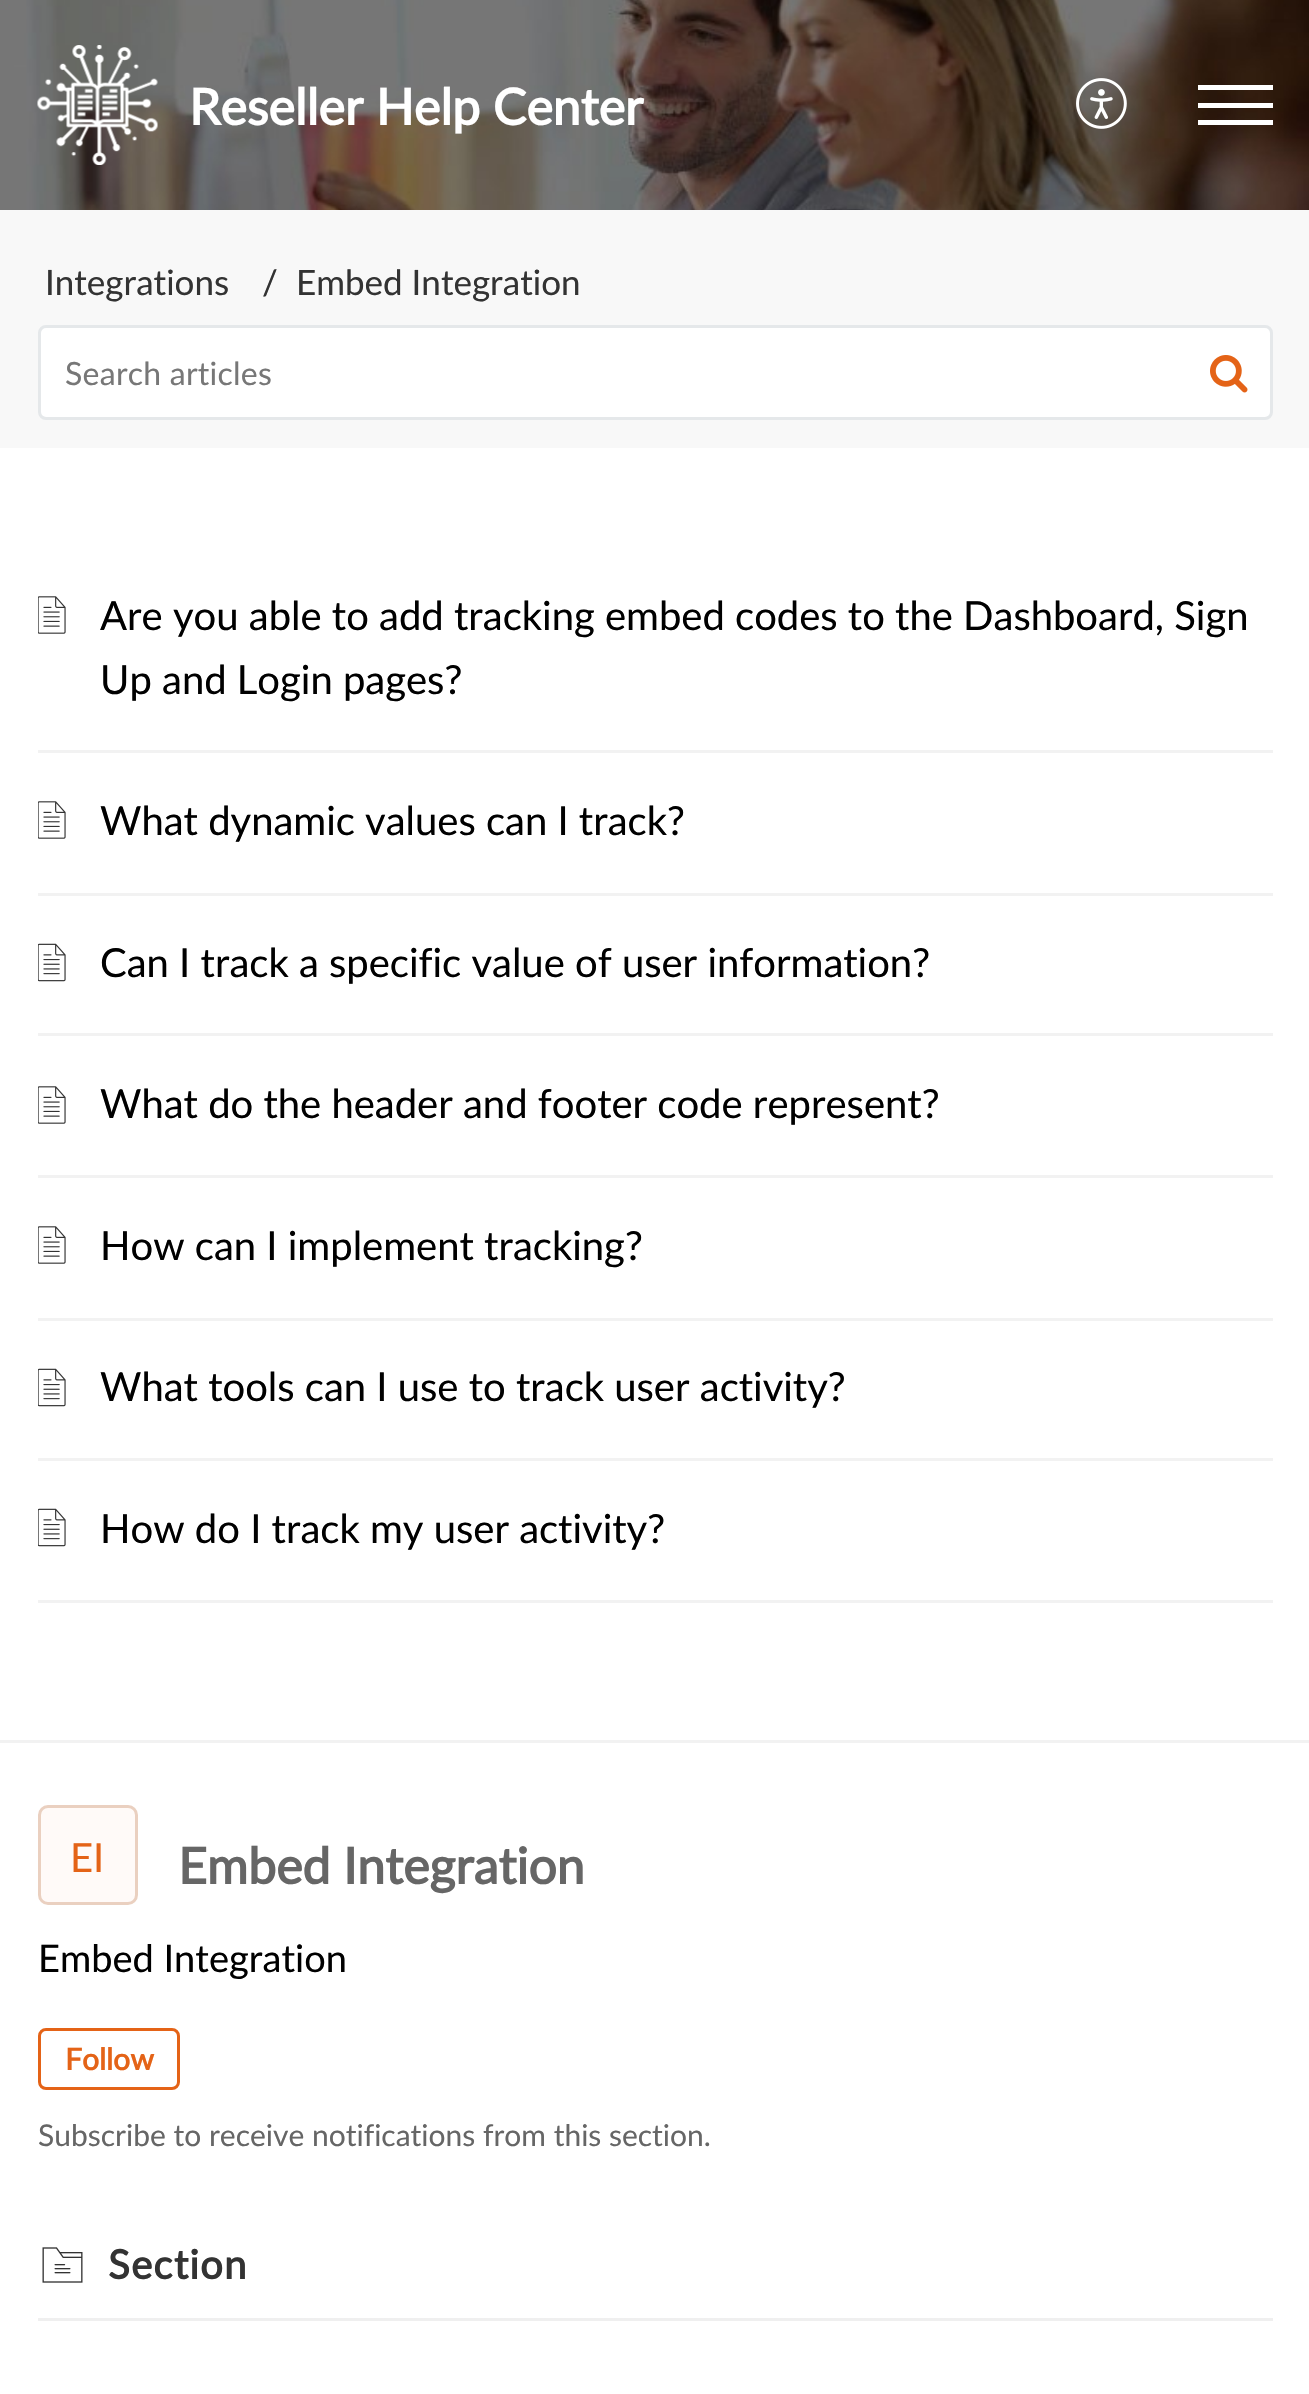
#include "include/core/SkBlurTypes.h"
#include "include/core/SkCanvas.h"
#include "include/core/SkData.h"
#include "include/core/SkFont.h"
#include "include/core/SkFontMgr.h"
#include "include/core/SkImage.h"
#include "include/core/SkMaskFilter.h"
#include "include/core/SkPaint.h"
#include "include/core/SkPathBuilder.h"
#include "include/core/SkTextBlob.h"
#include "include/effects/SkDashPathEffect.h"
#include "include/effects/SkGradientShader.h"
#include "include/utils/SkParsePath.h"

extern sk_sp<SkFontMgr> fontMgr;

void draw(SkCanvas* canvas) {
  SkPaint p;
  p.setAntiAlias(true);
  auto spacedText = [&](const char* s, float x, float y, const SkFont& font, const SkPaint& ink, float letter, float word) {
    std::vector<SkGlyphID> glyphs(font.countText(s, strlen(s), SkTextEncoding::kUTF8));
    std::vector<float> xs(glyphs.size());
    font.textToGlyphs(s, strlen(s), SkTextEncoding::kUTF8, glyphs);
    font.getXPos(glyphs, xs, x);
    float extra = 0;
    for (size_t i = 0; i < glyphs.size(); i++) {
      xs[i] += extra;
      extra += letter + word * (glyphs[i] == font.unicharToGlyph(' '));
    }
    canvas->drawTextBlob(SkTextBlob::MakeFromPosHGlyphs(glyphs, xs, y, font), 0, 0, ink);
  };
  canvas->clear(SK_ColorWHITE);
  canvas->drawImageRect(SkImages::DeferredFromEncodedData(SkData::MakeFromFileName("images/1.png")), SkRect::MakeLTRB(0, 0, 1309, 210), SkSamplingOptions());
  canvas->drawImageRect(SkImages::DeferredFromEncodedData(SkData::MakeFromFileName("images/2.png")), SkRect::MakeLTRB(37, 45, 158, 165), SkSamplingOptions());
  canvas->drawImageRect(SkImages::DeferredFromEncodedData(SkData::MakeFromFileName("images/3.png")), SkRect::MakeLTRB(1076, 78, 1127, 129), SkSamplingOptions());
  p.setColor(SK_ColorWHITE);
  canvas->drawRect(SkRect::MakeLTRB(1198, 103, 1273, 108), p);
  canvas->drawRect(SkRect::MakeLTRB(1198, 85, 1273, 90), p);
  canvas->drawRect(SkRect::MakeLTRB(1198, 120, 1273, 125), p);
  p.setColor(SkColorSetRGB(248, 248, 248));
  canvas->drawRect(SkRect::MakeLTRB(0, 210, 1309, 448), p);
  p.setColor(SK_ColorWHITE);
  canvas->drawRoundRect(SkRect::MakeLTRB(39.5f, 326.5f, 1271.5f, 418.5f), 6.5f, 6.5f, p);
  p.setStyle(SkPaint::kStroke_Style);
  p.setStrokeWidth(3);
  p.setColor(SkColorSetRGB(229, 232, 234));
  canvas->drawRoundRect(SkRect::MakeLTRB(39.5f, 326.5f, 1271.5f, 418.5f), 6.5f, 6.5f, p);
  canvas->drawImageRect(SkImages::DeferredFromEncodedData(SkData::MakeFromFileName("images/4.png")), SkRect::MakeLTRB(1210, 355, 1248, 393), SkSamplingOptions());
  p.setStyle(SkPaint::kFill_Style);
  p.setColor(SkColorSetRGB(242, 242, 242));
  canvas->drawRect(SkRect::MakeLTRB(0, 1740, 1309, 1743), p);
  canvas->drawRect(SkRect::MakeLTRB(38, 750, 1273, 753), p);
  canvas->drawImageRect(SkImages::DeferredFromEncodedData(SkData::MakeFromFileName("images/5.png")), SkRect::MakeLTRB(38, 596, 66, 634), SkSamplingOptions());
  canvas->drawRect(SkRect::MakeLTRB(38, 893, 1273, 896), p);
  canvas->drawImageRect(SkImages::DeferredFromEncodedData(SkData::MakeFromFileName("images/5.png")), SkRect::MakeLTRB(38, 801, 66, 839), SkSamplingOptions());
  canvas->drawRect(SkRect::MakeLTRB(38, 1033, 1273, 1036), p);
  canvas->drawImageRect(SkImages::DeferredFromEncodedData(SkData::MakeFromFileName("images/6.png")), SkRect::MakeLTRB(38, 943, 66, 982), SkSamplingOptions());
  canvas->drawRect(SkRect::MakeLTRB(38, 1175, 1273, 1178), p);
  canvas->drawImageRect(SkImages::DeferredFromEncodedData(SkData::MakeFromFileName("images/5.png")), SkRect::MakeLTRB(38, 1086, 66, 1124), SkSamplingOptions());
  canvas->drawRect(SkRect::MakeLTRB(38, 1318, 1273, 1321), p);
  canvas->drawImageRect(SkImages::DeferredFromEncodedData(SkData::MakeFromFileName("images/5.png")), SkRect::MakeLTRB(38, 1226, 66, 1264), SkSamplingOptions());
  canvas->drawRect(SkRect::MakeLTRB(38, 1458, 1273, 1461), p);
  canvas->drawImageRect(SkImages::DeferredFromEncodedData(SkData::MakeFromFileName("images/6.png")), SkRect::MakeLTRB(38, 1368, 66, 1407), SkSamplingOptions());
  canvas->drawRect(SkRect::MakeLTRB(38, 1600, 1273, 1603), p);
  canvas->drawImageRect(SkImages::DeferredFromEncodedData(SkData::MakeFromFileName("images/6.png")), SkRect::MakeLTRB(38, 1508, 66, 1547), SkSamplingOptions());
  p.setColor(SkColorSetRGB(255, 250, 248));
  canvas->drawRoundRect(SkRect::MakeLTRB(39.5f, 1806.5f, 136.5f, 1903.5f), 8.5f, 8.5f, p);
  p.setStyle(SkPaint::kStroke_Style);
  p.setColor(SkColorSetRGB(234, 208, 192));
  canvas->drawRoundRect(SkRect::MakeLTRB(39.5f, 1806.5f, 136.5f, 1903.5f), 8.5f, 8.5f, p);
  p.setColor(SkColorSetRGB(228, 99, 23));
  canvas->drawRoundRect(SkRect::MakeLTRB(39.5f, 2029.5f, 178.5f, 2088.5f), 6.5f, 6.5f, p);
  p.setStyle(SkPaint::kFill_Style);
  p.setColor(SkColorSetRGB(239, 239, 239));
  canvas->drawRect(SkRect::MakeLTRB(38, 2318, 1273, 2321), p);
  canvas->drawImageRect(SkImages::DeferredFromEncodedData(SkData::MakeFromFileName("images/7.png")), SkRect::MakeLTRB(42, 2247, 83, 2283), SkSamplingOptions());
  SkFont font1(fontMgr->matchFamilyStyle("Lato", SkFontStyle::Bold()), 50);
  font1.setSubpixel(true);
  p.setColor(SK_ColorWHITE);
  canvas->drawString("Reseller Help Center", 189, 125, font1, p);
  SkFont font2(fontMgr->matchFamilyStyle("Lato", SkFontStyle::Normal()), 35);
  font2.setSubpixel(true);
  p.setColor(SkColorSetRGB(51, 51, 51));
  canvas->drawString("Integrations", 45, 295, font2, p);
  canvas->drawString("/", 262, 295, font2, p);
  canvas->drawString("Embed Integration", 296, 295, font2, p);
  SkFont font3(fontMgr->matchFamilyStyle("Lato", SkFontStyle::Normal()), 32);
  font3.setSubpixel(true);
  p.setColor(SkColorSetRGB(119, 119, 119));
  spacedText("Search articles", 65, 385, font3, p, 0.25f, 0);
  SkFont font4(fontMgr->matchFamilyStyle("Lato", SkFontStyle::Normal()), 40);
  font4.setSubpixel(true);
  p.setColor(SK_ColorBLACK);
  canvas->drawString("Are you able to add tracking embed codes to the Dashboard, Sign", 100, 630, font4, p);
  canvas->drawString("Up and Login pages?", 100, 694, font4, p);
  canvas->drawString("What dynamic values can I track?", 100, 835, font4, p);
  canvas->drawString("Can I track a specific value of user information?", 100, 977, font4, p);
  canvas->drawString("What do the header and footer code represent?", 100, 1118, font4, p);
  canvas->drawString("How can I implement tracking?", 100, 1260, font4, p);
  canvas->drawString("What tools can I use to track user activity?", 100, 1401, font4, p);
  canvas->drawString("How do I track my user activity?", 100, 1543, font4, p);
  p.setColor(SkColorSetRGB(228, 99, 23));
  canvas->drawString("EI", 70, 1872, font4, p);
  p.setColor(SkColorSetRGB(102, 102, 102));
  canvas->drawString("Embed Integration", 178, 1884, font1, p);
  SkFont font5(fontMgr->matchFamilyStyle("Lato", SkFontStyle::Normal()), 38);
  font5.setSubpixel(true);
  p.setColor(SK_ColorBLACK);
  canvas->drawString("Embed Integration", 38, 1972, font5, p);
  SkFont font6(fontMgr->matchFamilyStyle("Lato", SkFontStyle::Bold()), 30);
  font6.setSubpixel(true);
  p.setColor(SkColorSetRGB(228, 99, 23));
  canvas->drawString("Follow", 65, 2070, font6, p);
  SkFont font7(fontMgr->matchFamilyStyle("Lato", SkFontStyle::Normal()), 30);
  font7.setSubpixel(true);
  p.setColor(SkColorSetRGB(102, 102, 102));
  canvas->drawString("Subscribe to receive notifications from this section.", 38, 2146, font7, p);
  SkFont font8(fontMgr->matchFamilyStyle("Lato", SkFontStyle::Bold()), 40);
  font8.setSubpixel(true);
  p.setColor(SkColorSetRGB(51, 51, 51));
  spacedText("Section", 108, 2279, font8, p, 1.25f, 0);
}
